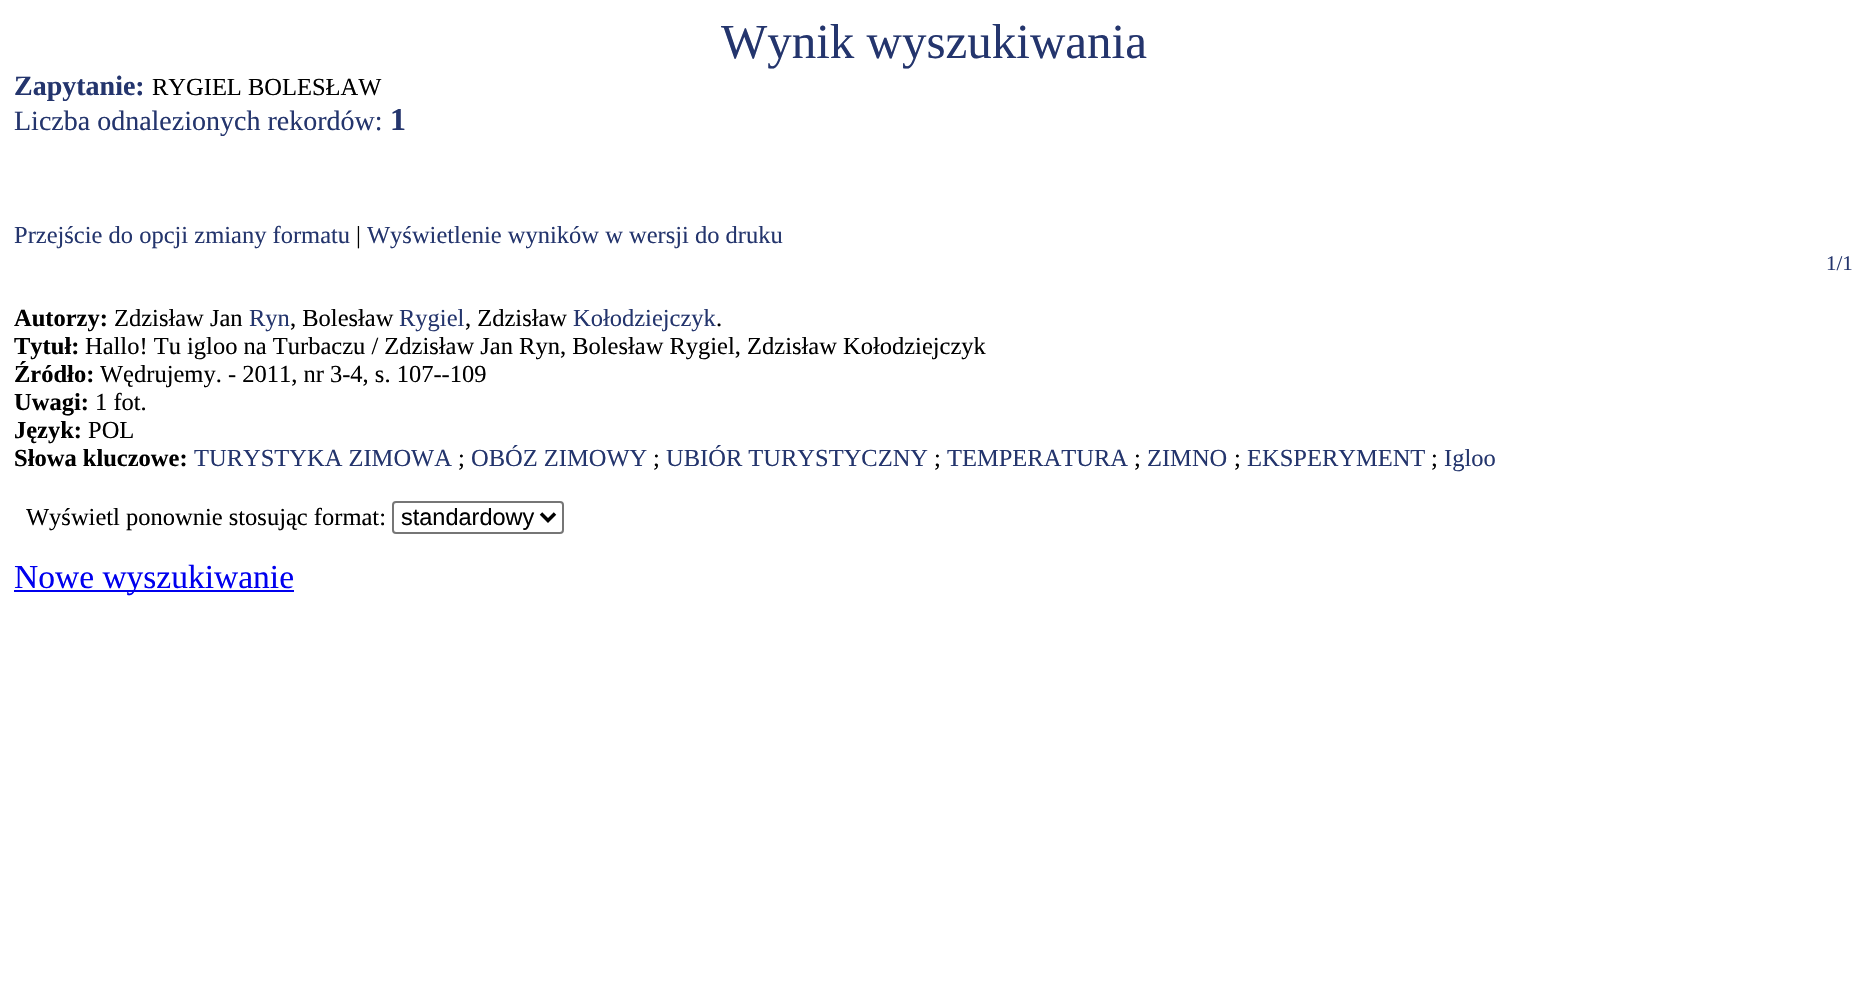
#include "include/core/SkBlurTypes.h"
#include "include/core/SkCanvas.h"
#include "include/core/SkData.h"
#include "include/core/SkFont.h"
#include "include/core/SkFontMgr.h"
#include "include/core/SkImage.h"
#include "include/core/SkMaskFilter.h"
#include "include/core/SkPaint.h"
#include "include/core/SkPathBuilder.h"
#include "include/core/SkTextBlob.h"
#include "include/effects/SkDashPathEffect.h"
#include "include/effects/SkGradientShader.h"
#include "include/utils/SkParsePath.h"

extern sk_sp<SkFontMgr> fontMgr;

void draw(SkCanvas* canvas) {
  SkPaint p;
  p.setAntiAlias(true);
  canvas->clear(SK_ColorWHITE);
  p.setStyle(SkPaint::kStroke_Style);
  p.setStrokeWidth(2);
  p.setColor(SkColorSetRGB(118, 118, 118));
  canvas->drawRoundRect(SkRect::MakeLTRB(393, 502, 563, 533), 3, 3, p);
  p.setStrokeWidth(3.5f);
  p.setColor(SK_ColorBLACK);
  canvas->drawPath(SkPathBuilder().moveTo(541, 513.5f).lineTo(548, 520.5f).lineTo(555, 513.5f).detach(), p);
  p.setStyle(SkPaint::kFill_Style);
  p.setColor(SkColorSetRGB(0, 0, 238));
  canvas->drawRect(SkRect::MakeLTRB(14, 590, 294, 592), p);
  SkFont font1(fontMgr->matchFamilyStyle("Liberation Serif", SkFontStyle::Normal()), 49);
  font1.setSubpixel(true);
  p.setColor(SkColorSetRGB(36, 53, 109));
  canvas->drawString("Wynik wyszukiwania", 721, 58, font1, p);
  SkFont font2(fontMgr->matchFamilyStyle("Liberation Serif", SkFontStyle::Bold()), 28);
  font2.setSubpixel(true);
  canvas->drawString("Zapytanie:", 14, 95, font2, p);
  SkFont font3(fontMgr->matchFamilyStyle("Liberation Serif", SkFontStyle::Normal()), 24.5f);
  font3.setSubpixel(true);
  p.setColor(SK_ColorBLACK);
  canvas->drawString("RYGIEL BOLESŁAW", 152, 95, font3, p);
  SkFont font4(fontMgr->matchFamilyStyle("Liberation Serif", SkFontStyle::Normal()), 28);
  font4.setSubpixel(true);
  p.setColor(SkColorSetRGB(36, 53, 109));
  canvas->drawString("Liczba odnalezionych rekordów:", 14, 130, font4, p);
  SkFont font5(fontMgr->matchFamilyStyle("Liberation Serif", SkFontStyle::Bold()), 32);
  font5.setSubpixel(true);
  canvas->drawString("1", 390, 130, font5, p);
  canvas->drawString("Przejście do opcji zmiany formatu", 14, 243, font3, p);
  p.setColor(SK_ColorBLACK);
  canvas->drawString("|", 356, 243, font3, p);
  p.setColor(SkColorSetRGB(36, 53, 109));
  canvas->drawString("Wyświetlenie wyników w wersji do druku", 367, 243, font3, p);
  SkFont font6(fontMgr->matchFamilyStyle("Liberation Serif", SkFontStyle::Normal()), 21);
  font6.setSubpixel(true);
  canvas->drawString("1/1", 1826, 270, font6, p);
  SkFont font7(fontMgr->matchFamilyStyle("Liberation Serif", SkFontStyle::Bold()), 24.5f);
  font7.setSubpixel(true);
  p.setColor(SK_ColorBLACK);
  canvas->drawString("Autorzy:", 14, 326, font7, p);
  canvas->drawString("Zdzisław Jan", 114, 326, font3, p);
  p.setColor(SkColorSetRGB(36, 53, 109));
  canvas->drawString("Ryn", 249, 326, font3, p);
  p.setColor(SK_ColorBLACK);
  canvas->drawString(", Bolesław", 290, 326, font3, p);
  p.setColor(SkColorSetRGB(36, 53, 109));
  canvas->drawString("Rygiel", 399, 326, font3, p);
  p.setColor(SK_ColorBLACK);
  canvas->drawString(", Zdzisław", 465, 326, font3, p);
  p.setColor(SkColorSetRGB(36, 53, 109));
  canvas->drawString("Kołodziejczyk", 573, 326, font3, p);
  p.setColor(SK_ColorBLACK);
  canvas->drawString(".", 716, 326, font3, p);
  canvas->drawString("Tytuł:", 14, 354, font7, p);
  canvas->drawString("Hallo! Tu igloo na Turbaczu / Zdzisław Jan Ryn, Bolesław Rygiel, Zdzisław Kołodziejczyk", 85, 354, font3, p);
  canvas->drawString("Źródło:", 14, 382, font7, p);
  canvas->drawString("Wędrujemy. - 2011, nr 3-4, s. 107--109", 100, 382, font3, p);
  canvas->drawString("Uwagi:", 14, 410, font7, p);
  canvas->drawString("1 fot.", 95, 410, font3, p);
  canvas->drawString("Język:", 14, 438, font7, p);
  canvas->drawString("POL", 88, 438, font3, p);
  canvas->drawString("Słowa kluczowe:", 14, 466, font7, p);
  p.setColor(SkColorSetRGB(36, 53, 109));
  canvas->drawString("TURYSTYKA ZIMOWA", 194, 466, font3, p);
  p.setColor(SK_ColorBLACK);
  canvas->drawString(";", 458, 466, font3, p);
  p.setColor(SkColorSetRGB(36, 53, 109));
  canvas->drawString("OBÓZ ZIMOWY", 471, 466, font3, p);
  p.setColor(SK_ColorBLACK);
  canvas->drawString(";", 653, 466, font3, p);
  p.setColor(SkColorSetRGB(36, 53, 109));
  canvas->drawString("UBIÓR TURYSTYCZNY", 666, 466, font3, p);
  p.setColor(SK_ColorBLACK);
  canvas->drawString(";", 934, 466, font3, p);
  p.setColor(SkColorSetRGB(36, 53, 109));
  canvas->drawString("TEMPERATURA", 947, 466, font3, p);
  p.setColor(SK_ColorBLACK);
  canvas->drawString(";", 1134, 466, font3, p);
  p.setColor(SkColorSetRGB(36, 53, 109));
  canvas->drawString("ZIMNO", 1147, 466, font3, p);
  p.setColor(SK_ColorBLACK);
  canvas->drawString(";", 1234, 466, font3, p);
  p.setColor(SkColorSetRGB(36, 53, 109));
  canvas->drawString("EKSPERYMENT", 1247, 466, font3, p);
  p.setColor(SK_ColorBLACK);
  canvas->drawString(";", 1431, 466, font3, p);
  p.setColor(SkColorSetRGB(36, 53, 109));
  canvas->drawString("Igloo", 1444, 466, font3, p);
  p.setColor(SK_ColorBLACK);
  canvas->drawString("Wyświetl ponownie stosując format:", 26, 525, font3, p);
  SkFont font8(fontMgr->matchFamilyStyle("Liberation Sans", SkFontStyle::Normal()), 23.5f);
  font8.setSubpixel(true);
  canvas->drawString("standardowy", 401, 525, font8, p);
  SkFont font9(fontMgr->matchFamilyStyle("Liberation Serif", SkFontStyle::Normal()), 33.5f);
  font9.setSubpixel(true);
  p.setColor(SkColorSetRGB(0, 0, 238));
  canvas->drawString("Nowe wyszukiwanie", 14, 588, font9, p);
}
